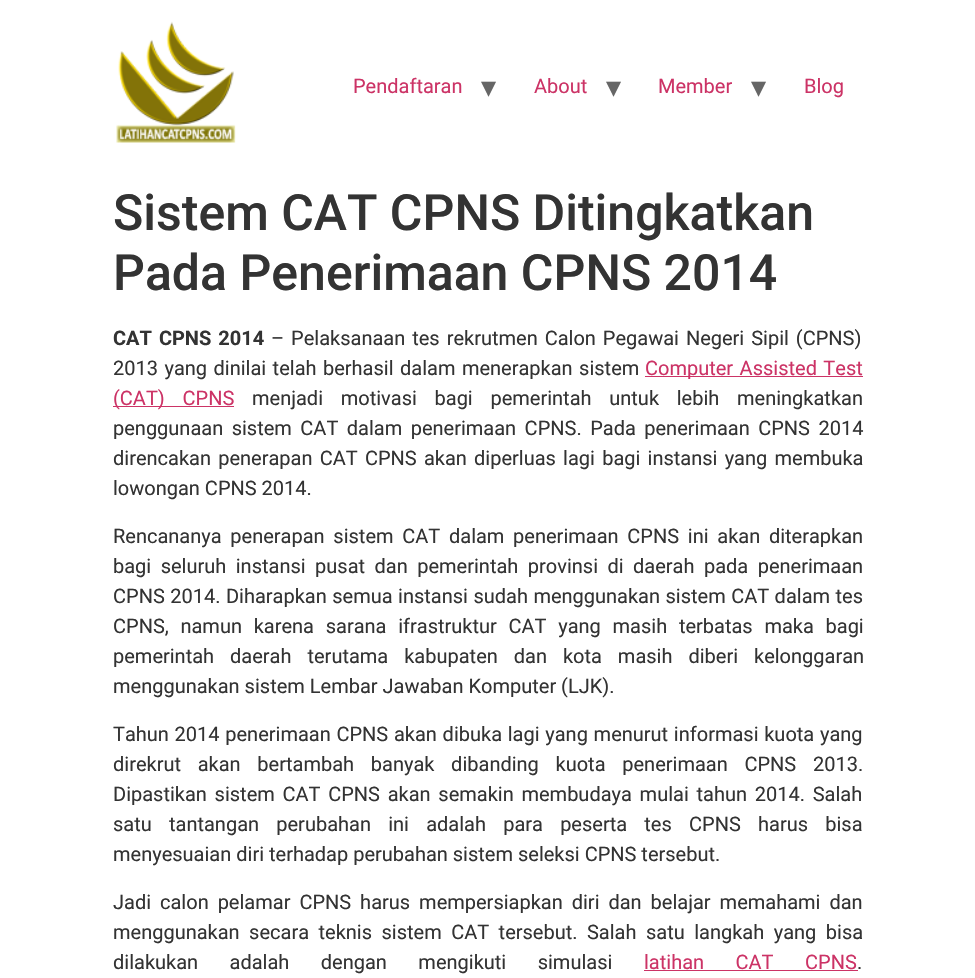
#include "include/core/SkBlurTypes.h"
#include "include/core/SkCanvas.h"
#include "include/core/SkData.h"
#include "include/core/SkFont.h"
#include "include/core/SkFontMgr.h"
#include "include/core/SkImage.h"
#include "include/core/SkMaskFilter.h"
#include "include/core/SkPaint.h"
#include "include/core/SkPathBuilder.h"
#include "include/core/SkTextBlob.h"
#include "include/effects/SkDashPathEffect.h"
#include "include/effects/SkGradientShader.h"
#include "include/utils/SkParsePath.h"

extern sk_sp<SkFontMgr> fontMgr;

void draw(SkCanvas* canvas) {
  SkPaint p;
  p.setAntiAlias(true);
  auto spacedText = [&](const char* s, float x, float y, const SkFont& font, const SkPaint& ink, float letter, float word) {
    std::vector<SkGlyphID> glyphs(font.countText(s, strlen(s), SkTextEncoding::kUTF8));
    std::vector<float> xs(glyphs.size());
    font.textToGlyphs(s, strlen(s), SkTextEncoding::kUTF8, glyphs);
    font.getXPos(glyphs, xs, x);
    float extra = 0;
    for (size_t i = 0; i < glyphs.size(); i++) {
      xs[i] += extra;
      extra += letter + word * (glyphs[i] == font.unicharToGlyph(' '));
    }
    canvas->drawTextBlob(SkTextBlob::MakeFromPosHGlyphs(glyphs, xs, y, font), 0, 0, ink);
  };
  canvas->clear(SK_ColorWHITE);
  canvas->drawImageRect(SkImages::DeferredFromEncodedData(SkData::MakeFromFileName("images/1.png")), SkRect::MakeLTRB(116, 21, 236, 143), SkSamplingOptions());
  p.setColor(SkColorSetRGB(204, 51, 102));
  canvas->drawRect(SkRect::MakeLTRB(645, 376, 863, 377), p);
  canvas->drawRect(SkRect::MakeLTRB(113, 406, 234, 407), p);
  canvas->drawRect(SkRect::MakeLTRB(644, 970, 858, 971), p);
  SkFont font1(fontMgr->matchFamilyStyle("Roboto", SkFontStyle::Normal()), 20);
  font1.setSubpixel(true);
  canvas->drawString("Pendaftaran", 353, 93, font1, p);
  SkFont font2(fontMgr->matchFamilyStyle("DejaVu Sans", SkFontStyle::Normal()), 30);
  font2.setSubpixel(true);
  p.setColor(SkColorSetRGB(102, 102, 102));
  canvas->drawString("▾", 481, 97, font2, p);
  p.setColor(SkColorSetRGB(204, 51, 102));
  canvas->drawString("About", 534, 93, font1, p);
  p.setColor(SkColorSetRGB(102, 102, 102));
  canvas->drawString("▾", 606, 97, font2, p);
  p.setColor(SkColorSetRGB(204, 51, 102));
  canvas->drawString("Member", 658, 93, font1, p);
  p.setColor(SkColorSetRGB(102, 102, 102));
  canvas->drawString("▾", 751, 97, font2, p);
  p.setColor(SkColorSetRGB(204, 51, 102));
  canvas->drawString("Blog", 804, 93, font1, p);
  SkFont font3(fontMgr->matchFamilyStyle("Roboto", SkFontStyle(500, SkFontStyle::kNormal_Width, SkFontStyle::kUpright_Slant)), 50);
  font3.setSubpixel(true);
  p.setColor(SkColorSetRGB(51, 51, 51));
  canvas->drawString("Sistem CAT CPNS Ditingkatkan", 113, 230, font3, p);
  canvas->drawString("Pada Penerimaan CPNS 2014", 113, 290, font3, p);
  SkFont font4(fontMgr->matchFamilyStyle("Roboto", SkFontStyle::Bold()), 20);
  font4.setSubpixel(true);
  spacedText("CAT CPNS 2014", 113, 345, font4, p, 0, 2);
  spacedText("– Pelaksanaan tes rekrutmen Calon Pegawai Negeri Sipil (CPNS)", 271, 345, font1, p, 0, 2);
  spacedText("2013 yang dinilai telah berhasil dalam menerapkan sistem", 113, 375, font1, p, 0, 1.5f);
  p.setColor(SkColorSetRGB(204, 51, 102));
  spacedText("Computer Assisted Test", 645, 375, font1, p, 0, 1.5f);
  spacedText("(CAT) CPNS", 113, 405, font1, p, 0, 12.75f);
  p.setColor(SkColorSetRGB(51, 51, 51));
  spacedText("menjadi motivasi bagi pemerintah untuk lebih meningkatkan", 252, 405, font1, p, 0, 12.75f);
  spacedText("penggunaan sistem CAT dalam penerimaan CPNS. Pada penerimaan CPNS 2014", 113, 435, font1, p, 0, 3.5f);
  spacedText("direncakan penerapan CAT CPNS akan diperluas lagi bagi instansi yang membuka", 113, 465, font1, p, 0, 2.25f);
  canvas->drawString("lowongan CPNS 2014.", 113, 495, font1, p);
  spacedText("Rencananya penerapan sistem CAT dalam penerimaan CPNS ini akan diterapkan", 113, 543, font1, p, 0, 3.75f);
  spacedText("bagi seluruh instansi pusat dan pemerintah provinsi di daerah pada penerimaan", 113, 573, font1, p, 0, 4.5f);
  spacedText("CPNS 2014. Diharapkan semua instansi sudah menggunakan sistem CAT dalam tes", 113, 603, font1, p, 0, 0.5f);
  spacedText("CPNS, namun karena sarana ifrastruktur CAT yang masih terbatas maka bagi", 113, 633, font1, p, 0, 6.75f);
  spacedText("pemerintah daerah terutama kabupaten dan kota masih diberi kelonggaran", 113, 663, font1, p, 0, 11);
  canvas->drawString("menggunakan sistem Lembar Jawaban Komputer (LJK).", 113, 693, font1, p);
  spacedText("Tahun 2014 penerimaan CPNS akan dibuka lagi yang menurut informasi kuota yang", 113, 741, font1, p, 0, 0.75f);
  spacedText("direkrut akan bertambah banyak dibanding kuota penerimaan CPNS 2013.", 113, 771, font1, p, 0, 11.75f);
  spacedText("Dipastikan sistem CAT CPNS akan semakin membudaya mulai tahun 2014. Salah", 113, 801, font1, p, 0, 2.75f);
  spacedText("satu tantangan perubahan ini adalah para peserta tes CPNS harus bisa", 113, 831, font1, p, 0, 12.25f);
  canvas->drawString("menyesuaian diri terhadap perubahan sistem seleksi CPNS tersebut.", 113, 861, font1, p);
  spacedText("Jadi calon pelamar CPNS harus mempersiapkan diri dan belajar memahami dan", 113, 909, font1, p, 0, 4);
  spacedText("menggunakan secara teknis sistem CAT tersebut. Salah satu langkah yang bisa", 113, 939, font1, p, 0, 4.5f);
  spacedText("dilakukan adalah dengan mengikuti simulasi", 113, 969, font1, p, 0, 26.5f);
  p.setColor(SkColorSetRGB(204, 51, 102));
  spacedText("latihan CAT CPNS", 644, 969, font1, p, 0, 26.5f);
  p.setColor(SkColorSetRGB(51, 51, 51));
  canvas->drawString(".", 857, 969, font1, p);
}
